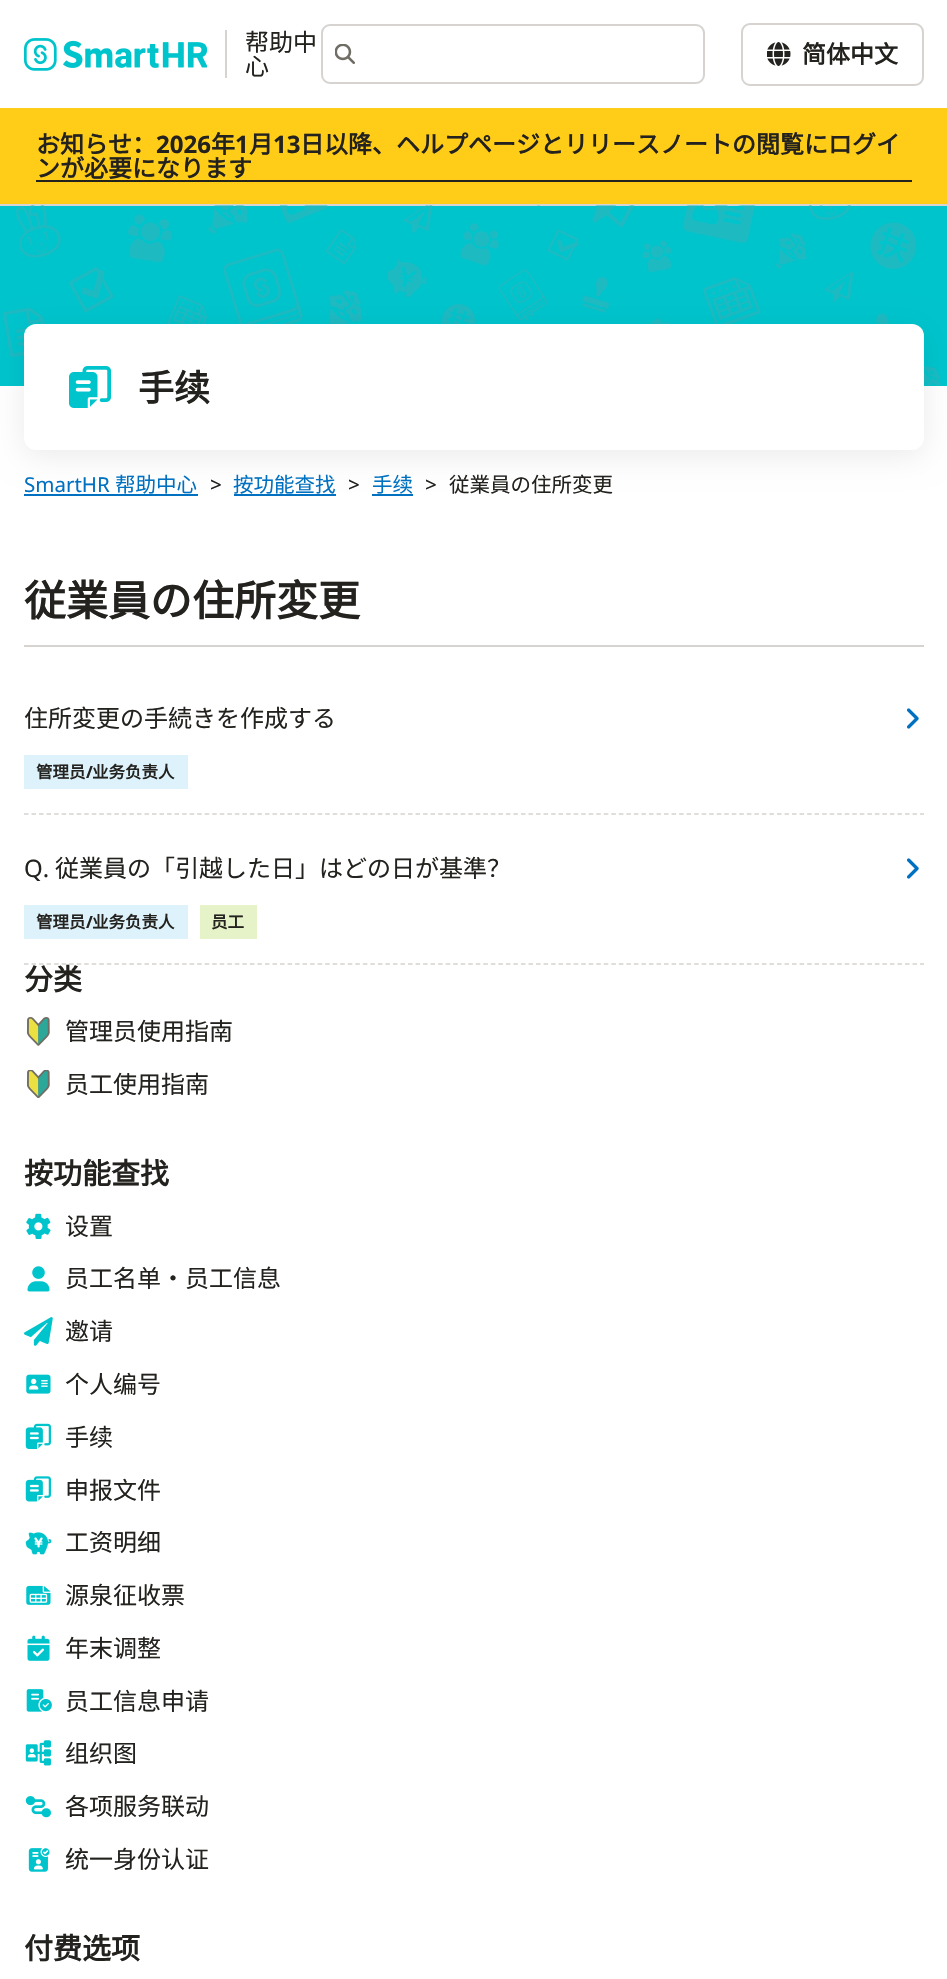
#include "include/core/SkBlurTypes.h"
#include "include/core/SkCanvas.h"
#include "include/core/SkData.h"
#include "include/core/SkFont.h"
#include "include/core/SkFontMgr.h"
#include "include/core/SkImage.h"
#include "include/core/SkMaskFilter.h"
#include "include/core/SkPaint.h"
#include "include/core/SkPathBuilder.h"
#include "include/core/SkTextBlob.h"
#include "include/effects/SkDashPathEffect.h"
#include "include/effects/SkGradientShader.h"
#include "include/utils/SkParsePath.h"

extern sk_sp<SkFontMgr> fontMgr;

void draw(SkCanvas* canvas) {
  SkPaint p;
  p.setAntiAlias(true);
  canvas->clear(SK_ColorWHITE);
  canvas->drawImageRect(SkImages::DeferredFromEncodedData(SkData::MakeFromFileName("images/1.png")), SkRect::MakeLTRB(24, 38, 207, 71), SkSamplingOptions());
  p.setColor(SkColorSetRGB(214, 211, 208));
  canvas->drawRect(SkRect::MakeLTRB(225, 30, 227, 78), p);
  p.setStyle(SkPaint::kStroke_Style);
  p.setStrokeWidth(2);
  canvas->drawRoundRect(SkRect::MakeLTRB(322, 25, 704, 83), 8, 8, p);
  canvas->drawImageRect(SkImages::DeferredFromEncodedData(SkData::MakeFromFileName("images/2.png")), SkRect::MakeLTRB(335, 44, 355, 64), SkSamplingOptions());
  canvas->drawRoundRect(SkRect::MakeLTRB(742, 24, 923, 85), 8, 8, p);
  canvas->drawImageRect(SkImages::DeferredFromEncodedData(SkData::MakeFromFileName("images/3.png")), SkRect::MakeLTRB(767, 42, 791, 66), SkSamplingOptions());
  p.setStyle(SkPaint::kFill_Style);
  p.setColor(SkColorSetRGB(255, 204, 23));
  canvas->drawRect(SkRect::MakeLTRB(0, 108, 947, 204), p);
  p.setColor(SkColorSetRGB(214, 211, 208));
  canvas->drawRect(SkRect::MakeLTRB(0, 204, 947, 206), p);
  p.setColor(SkColorSetRGB(35, 34, 30));
  canvas->drawRect(SkRect::MakeLTRB(36, 180, 912, 182), p);
  p.setColor(SkColorSetRGB(0, 196, 204));
  canvas->drawRect(SkRect::MakeLTRB(0, 206, 947, 386), p);
  canvas->drawImageRect(SkImages::DeferredFromEncodedData(SkData::MakeFromFileName("images/4.png")), SkRect::MakeLTRB(2, 205, 941, 386), SkSamplingOptions());
  p.setColor(SkColorSetRGB(0, 113, 193));
  canvas->drawRect(SkRect::MakeLTRB(24, 494, 198, 496), p);
  canvas->drawRect(SkRect::MakeLTRB(234, 494, 336, 496), p);
  canvas->drawRect(SkRect::MakeLTRB(372, 494, 413, 496), p);
  p.setColor(SkColorSetARGB(20, 0, 0, 0));
  p.setMaskFilter(SkMaskFilter::MakeBlur(kNormal_SkBlurStyle, 15));
  canvas->drawRoundRect(SkRect::MakeLTRB(24, 330, 924, 456), 12, 12, p);
  p.setMaskFilter(nullptr);
  p.setColor(SK_ColorWHITE);
  canvas->drawRoundRect(SkRect::MakeLTRB(24, 324, 924, 450), 12, 12, p);
  canvas->drawImageRect(SkImages::DeferredFromEncodedData(SkData::MakeFromFileName("images/5.png")), SkRect::MakeLTRB(69, 366, 112, 408), SkSamplingOptions());
  p.setColor(SkColorSetRGB(214, 211, 208));
  canvas->drawRect(SkRect::MakeLTRB(24, 645, 924, 647), p);
  p.setStyle(SkPaint::kStroke_Style);
  p.setStrokeWidth(1.5f);
  p.setPathEffect(SkDashPathEffect::Make({{4.5f, 3.03f}}, 0));
  canvas->drawPath(SkPathBuilder().moveTo(24, 814).lineTo(924, 814).detach(), p);
  p.setPathEffect(nullptr);
  canvas->drawImageRect(SkImages::DeferredFromEncodedData(SkData::MakeFromFileName("images/6.png")), SkRect::MakeLTRB(907, 708, 919, 729), SkSamplingOptions());
  p.setStyle(SkPaint::kFill_Style);
  p.setColor(SkColorSetRGB(221, 242, 251));
  canvas->drawRect(SkRect::MakeLTRB(24, 755, 188, 789), p);
  p.setStyle(SkPaint::kStroke_Style);
  p.setColor(SkColorSetRGB(214, 211, 208));
  p.setPathEffect(SkDashPathEffect::Make({{4.5f, 3.03f}}, 0));
  canvas->drawPath(SkPathBuilder().moveTo(24, 964).lineTo(924, 964).detach(), p);
  p.setPathEffect(nullptr);
  canvas->drawImageRect(SkImages::DeferredFromEncodedData(SkData::MakeFromFileName("images/6.png")), SkRect::MakeLTRB(907, 858, 919, 879), SkSamplingOptions());
  p.setStyle(SkPaint::kFill_Style);
  p.setColor(SkColorSetRGB(221, 242, 251));
  canvas->drawRect(SkRect::MakeLTRB(24, 905, 188, 939), p);
  p.setColor(SkColorSetRGB(230, 242, 200));
  canvas->drawRect(SkRect::MakeLTRB(200, 905, 257, 939), p);
  canvas->drawImageRect(SkImages::DeferredFromEncodedData(SkData::MakeFromFileName("images/7.png")), SkRect::MakeLTRB(26, 1017, 50, 1046), SkSamplingOptions());
  canvas->drawImageRect(SkImages::DeferredFromEncodedData(SkData::MakeFromFileName("images/8.png")), SkRect::MakeLTRB(26, 1070, 50, 1098), SkSamplingOptions());
  canvas->drawImageRect(SkImages::DeferredFromEncodedData(SkData::MakeFromFileName("images/9.png")), SkRect::MakeLTRB(26, 1213, 51, 1239), SkSamplingOptions());
  canvas->drawImageRect(SkImages::DeferredFromEncodedData(SkData::MakeFromFileName("images/10.png")), SkRect::MakeLTRB(27, 1266, 50, 1292), SkSamplingOptions());
  canvas->drawImageRect(SkImages::DeferredFromEncodedData(SkData::MakeFromFileName("images/11.png")), SkRect::MakeLTRB(24, 1317, 53, 1346), SkSamplingOptions());
  canvas->drawImageRect(SkImages::DeferredFromEncodedData(SkData::MakeFromFileName("images/12.png")), SkRect::MakeLTRB(26, 1374, 51, 1394), SkSamplingOptions());
  canvas->drawImageRect(SkImages::DeferredFromEncodedData(SkData::MakeFromFileName("images/13.png")), SkRect::MakeLTRB(25, 1423, 51, 1449), SkSamplingOptions());
  canvas->drawImageRect(SkImages::DeferredFromEncodedData(SkData::MakeFromFileName("images/14.png")), SkRect::MakeLTRB(25, 1476, 51, 1502), SkSamplingOptions());
  canvas->drawImageRect(SkImages::DeferredFromEncodedData(SkData::MakeFromFileName("images/15.png")), SkRect::MakeLTRB(25, 1532, 52, 1555), SkSamplingOptions());
  canvas->drawImageRect(SkImages::DeferredFromEncodedData(SkData::MakeFromFileName("images/16.png")), SkRect::MakeLTRB(26, 1585, 51, 1605), SkSamplingOptions());
  canvas->drawImageRect(SkImages::DeferredFromEncodedData(SkData::MakeFromFileName("images/17.png")), SkRect::MakeLTRB(27, 1635, 50, 1661), SkSamplingOptions());
  canvas->drawImageRect(SkImages::DeferredFromEncodedData(SkData::MakeFromFileName("images/18.png")), SkRect::MakeLTRB(26, 1689, 52, 1712), SkSamplingOptions());
  canvas->drawImageRect(SkImages::DeferredFromEncodedData(SkData::MakeFromFileName("images/19.png")), SkRect::MakeLTRB(25, 1740, 51, 1766), SkSamplingOptions());
  canvas->drawImageRect(SkImages::DeferredFromEncodedData(SkData::MakeFromFileName("images/20.png")), SkRect::MakeLTRB(25, 1796, 51, 1818), SkSamplingOptions());
  canvas->drawImageRect(SkImages::DeferredFromEncodedData(SkData::MakeFromFileName("images/21.png")), SkRect::MakeLTRB(28, 1848, 50, 1872), SkSamplingOptions());
  SkFont font1(fontMgr->matchFamilyStyle("Noto Sans CJK SC", SkFontStyle::Normal()), 24);
  font1.setSubpixel(true);
  p.setColor(SkColorSetRGB(35, 34, 30));
  canvas->drawString("帮助中", 245, 51, font1, p);
  canvas->drawString("心", 245, 75, font1, p);
  SkFont font2(fontMgr->matchFamilyStyle("Noto Sans CJK SC", SkFontStyle::Bold()), 24);
  font2.setSubpixel(true);
  canvas->drawString("简体中文", 802, 63, font2, p);
  canvas->drawString("お知らせ：", 36, 153, font2, p);
  SkFont font3(fontMgr->matchFamilyStyle("Noto Sans", SkFontStyle::Bold()), 24);
  font3.setSubpixel(true);
  canvas->drawString("2026", 156, 153, font3, p);
  canvas->drawString("年", 211, 153, font2, p);
  canvas->drawString("1", 235, 153, font3, p);
  canvas->drawString("月", 249, 153, font2, p);
  canvas->drawString("13", 273, 153, font3, p);
  canvas->drawString("日以降、ヘルプページとリリースノートの閲覧にログイ", 300, 153, font2, p);
  canvas->drawString("ンが必要になります", 36, 177, font2, p);
  SkFont font4(fontMgr->matchFamilyStyle("Noto Sans CJK SC", SkFontStyle::Bold()), 36);
  font4.setSubpixel(true);
  canvas->drawString("手续", 138, 401, font4, p);
  SkFont font5(fontMgr->matchFamilyStyle("Noto Sans", SkFontStyle::Normal()), 20.5f);
  font5.setSubpixel(true);
  p.setColor(SkColorSetRGB(0, 113, 193));
  canvas->drawString("SmartHR", 24, 492, font5, p);
  SkFont font6(fontMgr->matchFamilyStyle("Noto Sans CJK SC", SkFontStyle::Normal()), 20.5f);
  font6.setSubpixel(true);
  canvas->drawString("帮助中心", 115, 492, font6, p);
  p.setColor(SkColorSetRGB(35, 34, 30));
  canvas->drawString(">", 210, 492, font5, p);
  p.setColor(SkColorSetRGB(0, 113, 193));
  canvas->drawString("按功能查找", 233, 492, font6, p);
  p.setColor(SkColorSetRGB(35, 34, 30));
  canvas->drawString(">", 348, 492, font5, p);
  p.setColor(SkColorSetRGB(0, 113, 193));
  canvas->drawString("手续", 372, 492, font6, p);
  p.setColor(SkColorSetRGB(35, 34, 30));
  canvas->drawString(">", 425, 492, font5, p);
  canvas->drawString("従業員の住所変更", 449, 492, font6, p);
  SkFont font7(fontMgr->matchFamilyStyle("Noto Sans CJK SC", SkFontStyle::Bold()), 42);
  font7.setSubpixel(true);
  canvas->drawString("従業員の住所変更", 24, 616, font7, p);
  canvas->drawString("住所変更の手続きを作成する", 24, 727, font1, p);
  SkFont font8(fontMgr->matchFamilyStyle("Noto Sans CJK SC", SkFontStyle::Bold()), 16.5f);
  font8.setSubpixel(true);
  canvas->drawString("管理员", 36, 778, font8, p);
  SkFont font9(fontMgr->matchFamilyStyle("Noto Sans", SkFontStyle::Bold()), 16.5f);
  font9.setSubpixel(true);
  canvas->drawString("/", 86, 778, font9, p);
  canvas->drawString("业务负责人", 92, 778, font8, p);
  SkFont font10(fontMgr->matchFamilyStyle("Noto Sans", SkFontStyle::Normal()), 24);
  font10.setSubpixel(true);
  canvas->drawString("Q.", 24, 877, font10, p);
  canvas->drawString("従業員の「引越した日」はどの日が基準？", 55, 877, font1, p);
  canvas->drawString("管理员", 36, 928, font8, p);
  canvas->drawString("/", 86, 928, font9, p);
  canvas->drawString("业务负责人", 92, 928, font8, p);
  canvas->drawString("员工", 211, 928, font8, p);
  SkFont font11(fontMgr->matchFamilyStyle("Noto Sans CJK SC", SkFontStyle::Bold()), 29);
  font11.setSubpixel(true);
  canvas->drawString("分类", 24, 990, font11, p);
  canvas->drawString("管理员使用指南", 65, 1040, font1, p);
  canvas->drawString("员工使用指南", 65, 1093, font1, p);
  canvas->drawString("按功能查找", 24, 1184, font11, p);
  canvas->drawString("设置", 65, 1235, font1, p);
  canvas->drawString("员工名单・员工信息", 65, 1287, font1, p);
  canvas->drawString("邀请", 65, 1340, font1, p);
  canvas->drawString("个人编号", 65, 1393, font1, p);
  canvas->drawString("手续", 65, 1446, font1, p);
  canvas->drawString("申报文件", 65, 1499, font1, p);
  canvas->drawString("工资明细", 65, 1551, font1, p);
  canvas->drawString("源泉征收票", 65, 1604, font1, p);
  canvas->drawString("年末调整", 65, 1657, font1, p);
  canvas->drawString("员工信息申请", 65, 1710, font1, p);
  canvas->drawString("组织图", 65, 1762, font1, p);
  canvas->drawString("各项服务联动", 65, 1815, font1, p);
  canvas->drawString("统一身份认证", 65, 1868, font1, p);
  canvas->drawString("付费选项", 24, 1959, font11, p);
}
